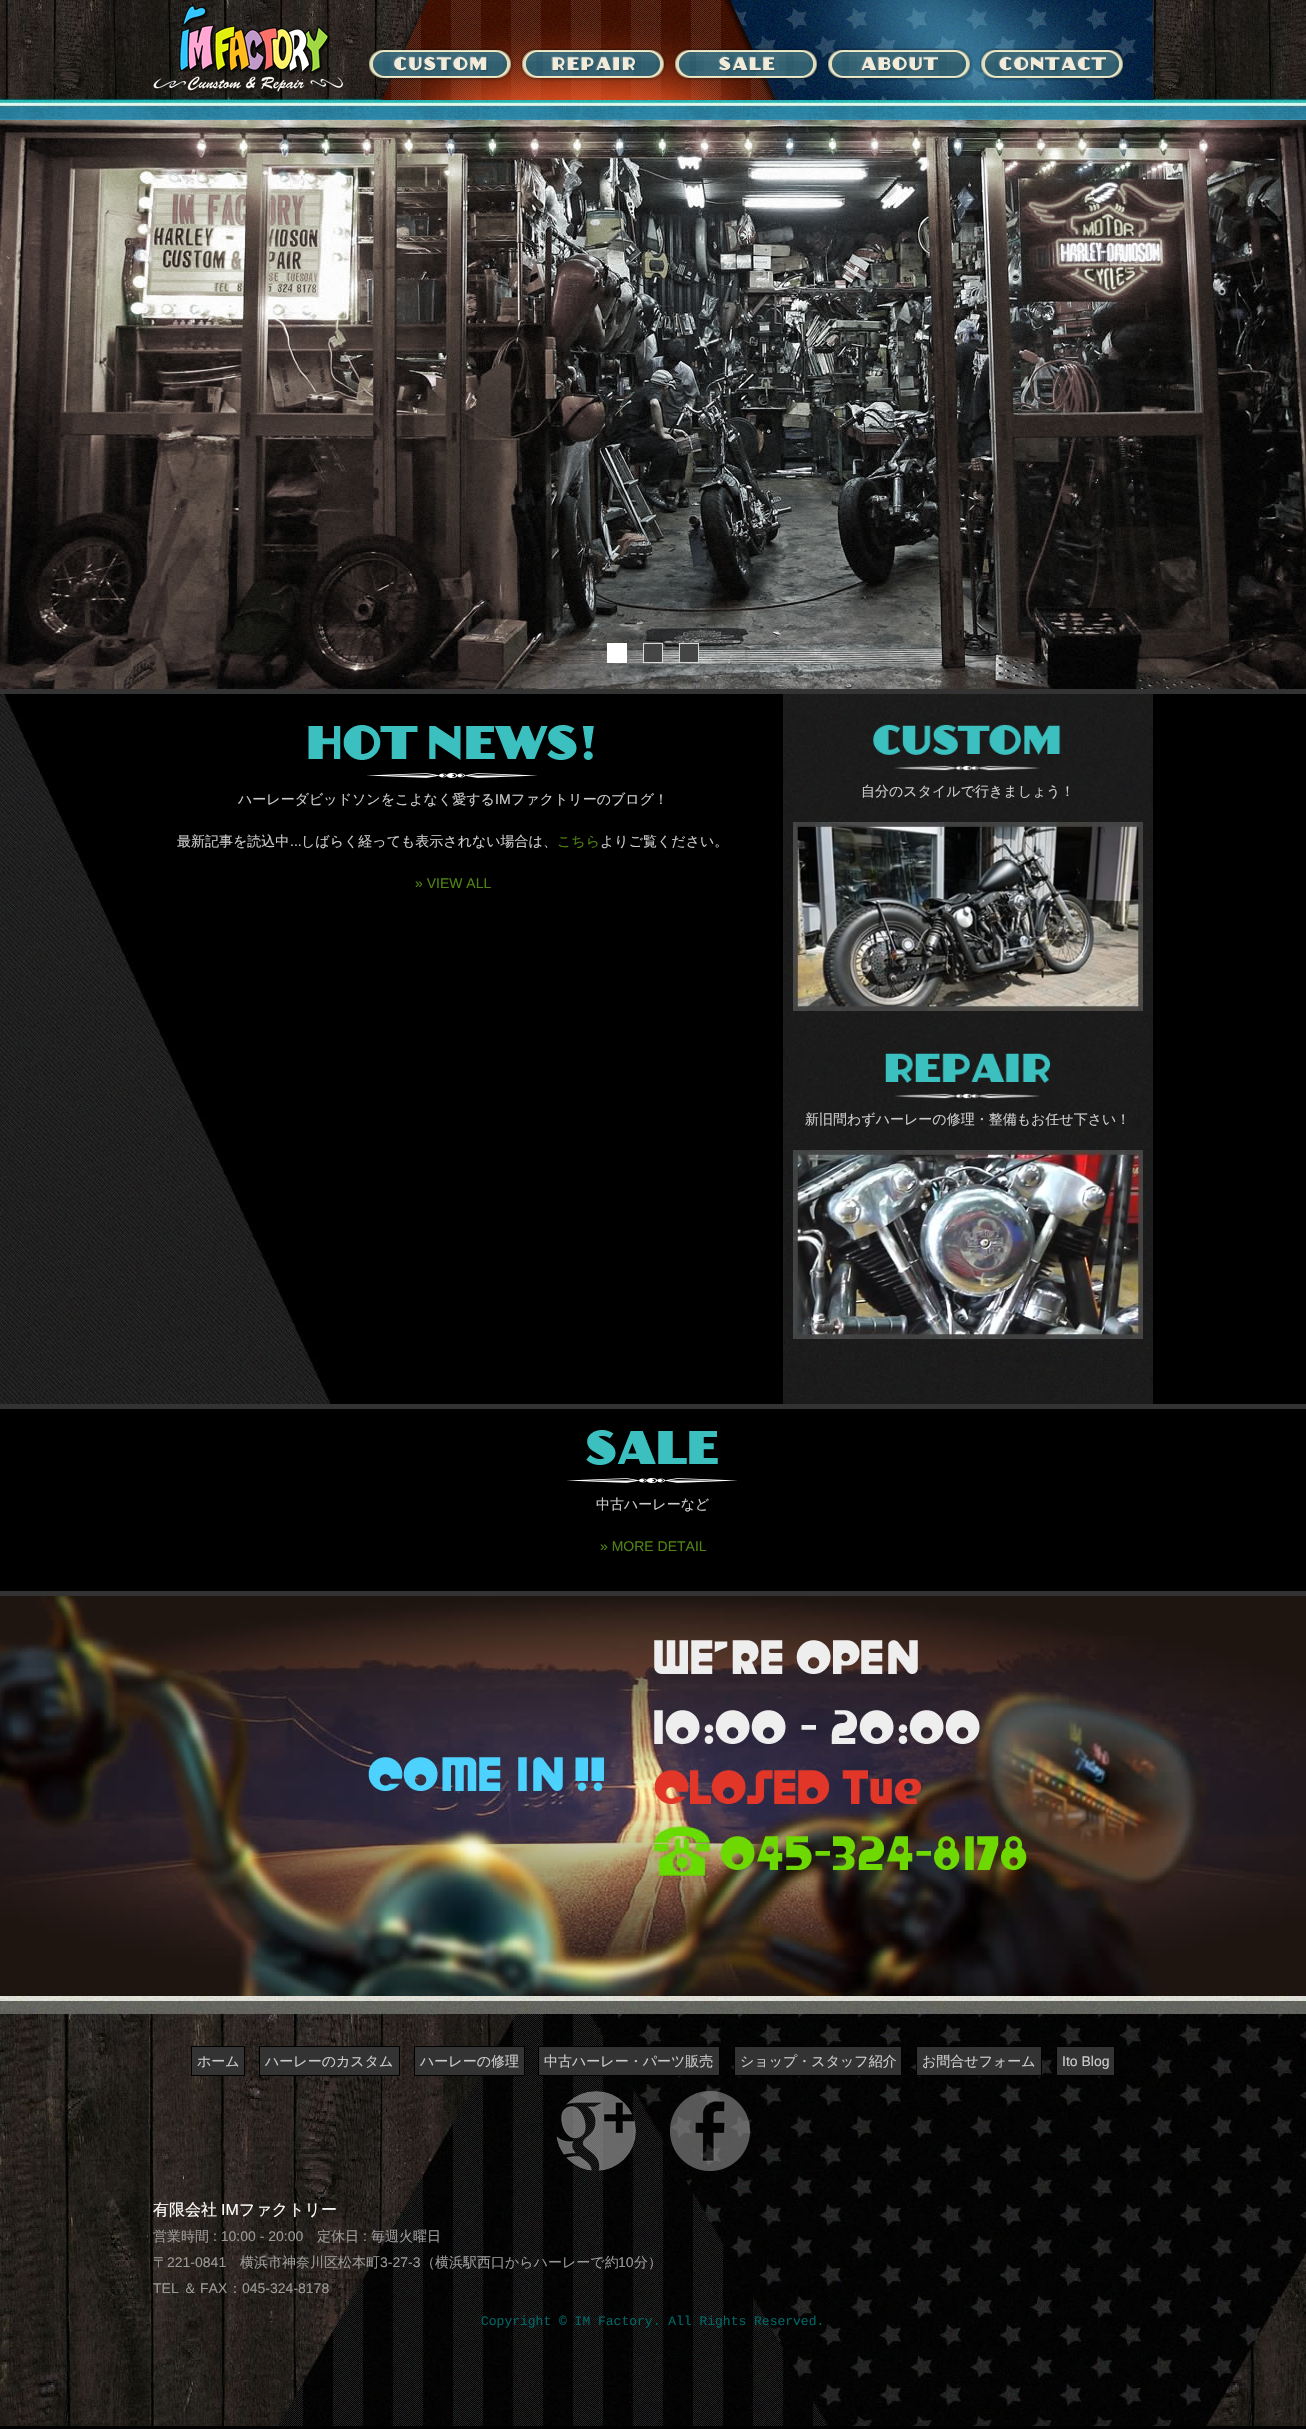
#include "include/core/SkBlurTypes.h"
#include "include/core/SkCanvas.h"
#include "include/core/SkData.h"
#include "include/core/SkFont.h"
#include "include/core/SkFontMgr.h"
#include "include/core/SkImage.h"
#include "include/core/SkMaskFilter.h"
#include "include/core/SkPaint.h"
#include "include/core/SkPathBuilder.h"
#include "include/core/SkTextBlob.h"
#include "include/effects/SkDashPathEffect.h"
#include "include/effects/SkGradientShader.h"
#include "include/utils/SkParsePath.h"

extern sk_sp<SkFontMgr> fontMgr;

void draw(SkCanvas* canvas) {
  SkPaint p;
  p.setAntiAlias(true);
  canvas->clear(SK_ColorBLACK);
  canvas->drawImageRect(SkImages::DeferredFromEncodedData(SkData::MakeFromFileName("images/1.png")), SkRect::MakeLTRB(0, 0, 1306, 120), SkSamplingOptions());
  canvas->drawImageRect(SkImages::DeferredFromEncodedData(SkData::MakeFromFileName("images/2.png")), SkRect::MakeLTRB(153, 5, 345, 93), SkSamplingOptions());
  canvas->drawImageRect(SkImages::DeferredFromEncodedData(SkData::MakeFromFileName("images/3.png")), SkRect::MakeLTRB(378, 0, 1153, 100), SkSamplingOptions());
  canvas->drawImageRect(SkImages::DeferredFromEncodedData(SkData::MakeFromFileName("images/4.png")), SkRect::MakeLTRB(368, 48, 514, 81), SkSamplingOptions());
  canvas->drawImageRect(SkImages::DeferredFromEncodedData(SkData::MakeFromFileName("images/5.png")), SkRect::MakeLTRB(521, 48, 667, 82), SkSamplingOptions());
  canvas->drawImageRect(SkImages::DeferredFromEncodedData(SkData::MakeFromFileName("images/6.png")), SkRect::MakeLTRB(674, 48, 819, 81), SkSamplingOptions());
  canvas->drawImageRect(SkImages::DeferredFromEncodedData(SkData::MakeFromFileName("images/7.png")), SkRect::MakeLTRB(827, 48, 973, 81), SkSamplingOptions());
  canvas->drawImageRect(SkImages::DeferredFromEncodedData(SkData::MakeFromFileName("images/8.png")), SkRect::MakeLTRB(980, 48, 1125, 81), SkSamplingOptions());
  canvas->drawImageRect(SkImages::DeferredFromEncodedData(SkData::MakeFromFileName("images/9.png")), SkRect::MakeLTRB(0, 120, 1306, 689), SkSamplingOptions());
  canvas->drawImageRect(SkImages::DeferredFromEncodedData(SkData::MakeFromFileName("images/10.png")), SkRect::MakeLTRB(0, 120, 1306, 689), SkSamplingOptions());
  p.setColor(SK_ColorWHITE);
  canvas->drawRect(SkRect::MakeLTRB(607, 643, 627, 663), p);
  canvas->drawImageRect(SkImages::DeferredFromEncodedData(SkData::MakeFromFileName("images/11.png")), SkRect::MakeLTRB(643, 643, 663, 663), SkSamplingOptions());
  canvas->drawImageRect(SkImages::DeferredFromEncodedData(SkData::MakeFromFileName("images/11.png")), SkRect::MakeLTRB(679, 643, 699, 663), SkSamplingOptions());
  canvas->drawImageRect(SkImages::DeferredFromEncodedData(SkData::MakeFromFileName("images/12.png")), SkRect::MakeLTRB(0, 694, 331, 1404), SkSamplingOptions());
  p.setColor(SkColorSetRGB(51, 51, 51));
  canvas->drawRect(SkRect::MakeLTRB(0, 689, 1306, 694), p);
  canvas->drawImageRect(SkImages::DeferredFromEncodedData(SkData::MakeFromFileName("images/13.png")), SkRect::MakeLTRB(308, 725, 594, 778), SkSamplingOptions());
  p.setColor(SkColorSetRGB(27, 27, 27));
  canvas->drawRect(SkRect::MakeLTRB(783, 1401, 1153, 1404), p);
  canvas->drawImageRect(SkImages::DeferredFromEncodedData(SkData::MakeFromFileName("images/14.png")), SkRect::MakeLTRB(783, 694, 1153, 1401), SkSamplingOptions());
  canvas->drawImageRect(SkImages::DeferredFromEncodedData(SkData::MakeFromFileName("images/15.png")), SkRect::MakeLTRB(873, 724, 1061, 771), SkSamplingOptions());
  canvas->drawImageRect(SkImages::DeferredFromEncodedData(SkData::MakeFromFileName("images/16.png")), SkRect::MakeLTRB(793, 822, 1143, 1011), SkSamplingOptions());
  canvas->drawImageRect(SkImages::DeferredFromEncodedData(SkData::MakeFromFileName("images/17.png")), SkRect::MakeLTRB(885, 1053, 1050, 1099), SkSamplingOptions());
  canvas->drawImageRect(SkImages::DeferredFromEncodedData(SkData::MakeFromFileName("images/18.png")), SkRect::MakeLTRB(793, 1150, 1143, 1339), SkSamplingOptions());
  p.setColor(SkColorSetRGB(51, 51, 51));
  canvas->drawRect(SkRect::MakeLTRB(0, 1404, 1306, 1409), p);
  canvas->drawRect(SkRect::MakeLTRB(0, 1591, 1306, 1596), p);
  canvas->drawImageRect(SkImages::DeferredFromEncodedData(SkData::MakeFromFileName("images/19.png")), SkRect::MakeLTRB(567, 1430, 737, 1483), SkSamplingOptions());
  canvas->drawImageRect(SkImages::DeferredFromEncodedData(SkData::MakeFromFileName("images/20.png")), SkRect::MakeLTRB(0, 1596, 1306, 1996), SkSamplingOptions());
  canvas->drawImageRect(SkImages::DeferredFromEncodedData(SkData::MakeFromFileName("images/21.png")), SkRect::MakeLTRB(0, 1996, 1306, 2426), SkSamplingOptions());
  canvas->drawRect(SkRect::MakeLTRB(191.5f, 2046.5f, 244.5f, 2075.5f), p);
  p.setStyle(SkPaint::kStroke_Style);
  p.setStrokeWidth(1);
  p.setColor(SK_ColorBLACK);
  canvas->drawRect(SkRect::MakeLTRB(191.5f, 2046.5f, 244.5f, 2075.5f), p);
  p.setStyle(SkPaint::kFill_Style);
  p.setColor(SkColorSetRGB(51, 51, 51));
  canvas->drawRect(SkRect::MakeLTRB(259.5f, 2046.5f, 399.5f, 2075.5f), p);
  p.setStyle(SkPaint::kStroke_Style);
  p.setColor(SK_ColorBLACK);
  canvas->drawRect(SkRect::MakeLTRB(259.5f, 2046.5f, 399.5f, 2075.5f), p);
  p.setStyle(SkPaint::kFill_Style);
  p.setColor(SkColorSetRGB(51, 51, 51));
  canvas->drawRect(SkRect::MakeLTRB(414.5f, 2046.5f, 524.5f, 2075.5f), p);
  p.setStyle(SkPaint::kStroke_Style);
  p.setColor(SK_ColorBLACK);
  canvas->drawRect(SkRect::MakeLTRB(414.5f, 2046.5f, 524.5f, 2075.5f), p);
  p.setStyle(SkPaint::kFill_Style);
  p.setColor(SkColorSetRGB(51, 51, 51));
  canvas->drawRect(SkRect::MakeLTRB(538.5f, 2046.5f, 719.5f, 2075.5f), p);
  p.setStyle(SkPaint::kStroke_Style);
  p.setColor(SK_ColorBLACK);
  canvas->drawRect(SkRect::MakeLTRB(538.5f, 2046.5f, 719.5f, 2075.5f), p);
  p.setStyle(SkPaint::kFill_Style);
  p.setColor(SkColorSetRGB(51, 51, 51));
  canvas->drawRect(SkRect::MakeLTRB(734.5f, 2046.5f, 901.5f, 2075.5f), p);
  p.setStyle(SkPaint::kStroke_Style);
  p.setColor(SK_ColorBLACK);
  canvas->drawRect(SkRect::MakeLTRB(734.5f, 2046.5f, 901.5f, 2075.5f), p);
  p.setStyle(SkPaint::kFill_Style);
  p.setColor(SkColorSetRGB(51, 51, 51));
  canvas->drawRect(SkRect::MakeLTRB(916.5f, 2046.5f, 1041.5f, 2075.5f), p);
  p.setStyle(SkPaint::kStroke_Style);
  p.setColor(SK_ColorBLACK);
  canvas->drawRect(SkRect::MakeLTRB(916.5f, 2046.5f, 1041.5f, 2075.5f), p);
  p.setStyle(SkPaint::kFill_Style);
  p.setColor(SkColorSetRGB(51, 51, 51));
  canvas->drawRect(SkRect::MakeLTRB(1056.5f, 2046.5f, 1114.5f, 2075.5f), p);
  p.setStyle(SkPaint::kStroke_Style);
  p.setColor(SK_ColorBLACK);
  canvas->drawRect(SkRect::MakeLTRB(1056.5f, 2046.5f, 1114.5f, 2075.5f), p);
  canvas->drawImageRect(SkImages::DeferredFromEncodedData(SkData::MakeFromFileName("images/22.png")), SkRect::MakeLTRB(556, 2091, 636, 2171), SkSamplingOptions());
  canvas->drawImageRect(SkImages::DeferredFromEncodedData(SkData::MakeFromFileName("images/23.png")), SkRect::MakeLTRB(670, 2091, 750, 2171), SkSamplingOptions());
  SkFont font1(fontMgr->matchFamilyStyle("WenQuanYi Zen Hei", SkFontStyle(500, SkFontStyle::kNormal_Width, SkFontStyle::kUpright_Slant)), 14);
  font1.setSubpixel(true);
  p.setStyle(SkPaint::kFill_Style);
  p.setColor(SkColorSetRGB(204, 204, 204));
  canvas->drawString("ハーレーダビッドソンをこよなく愛する", 238, 804, font1, p);
  SkFont font2(fontMgr->matchFamilyStyle("Liberation Sans", SkFontStyle::Normal()), 14);
  font2.setSubpixel(true);
  canvas->drawString("IM", 495, 804, font2, p);
  canvas->drawString("ファクトリーのブログ！", 511, 804, font1, p);
  canvas->drawString("最新記事を読込中", 177, 846, font1, p);
  canvas->drawString("...", 290, 846, font2, p);
  canvas->drawString("しばらく経っても表示されない場合は、", 301, 846, font1, p);
  p.setColor(SkColorSetRGB(80, 131, 18));
  canvas->drawString("こちら", 557, 846, font1, p);
  p.setColor(SkColorSetRGB(204, 204, 204));
  canvas->drawString("よりご覧ください。", 600, 846, font1, p);
  p.setColor(SkColorSetRGB(80, 131, 18));
  canvas->drawString("» VIEW ALL", 415, 888, font2, p);
  p.setColor(SkColorSetRGB(204, 204, 204));
  canvas->drawString("自分のスタイルで行きましょう！", 861, 796, font1, p);
  canvas->drawString("新旧問わずハーレーの修理・整備もお任せ下さい！", 805, 1124, font1, p);
  canvas->drawString("中古ハーレーなど", 596, 1509, font1, p);
  p.setColor(SkColorSetRGB(80, 131, 18));
  canvas->drawString("» MORE DETAIL", 600, 1551, font2, p);
  p.setColor(SkColorSetRGB(204, 204, 204));
  canvas->drawString("ホーム", 197, 2066, font1, p);
  canvas->drawString("ハーレーのカスタム", 265, 2066, font1, p);
  canvas->drawString("ハーレーの修理", 420, 2066, font1, p);
  canvas->drawString("中古ハーレー・パーツ販売", 544, 2066, font1, p);
  canvas->drawString("ショップ・スタッフ紹介", 740, 2066, font1, p);
  canvas->drawString("お問合せフォーム", 922, 2066, font1, p);
  canvas->drawString("Ito Blog", 1062, 2066, font2, p);
  SkFont font3(fontMgr->matchFamilyStyle("WenQuanYi Zen Hei", SkFontStyle(500, SkFontStyle::kNormal_Width, SkFontStyle::kUpright_Slant)), 16);
  font3.setSubpixel(true);
  p.setColor(SK_ColorWHITE);
  canvas->drawString("有限会社", 153, 2215, font3, p);
  SkFont font4(fontMgr->matchFamilyStyle("Liberation Sans", SkFontStyle::Normal()), 16);
  font4.setSubpixel(true);
  canvas->drawString("IM", 221, 2215, font4, p);
  canvas->drawString("ファクトリー", 239, 2215, font3, p);
  p.setColor(SkColorSetRGB(153, 153, 153));
  canvas->drawString("営業時間", 153, 2241, font1, p);
  canvas->drawString(": 10:00 - 20:00", 213, 2241, font2, p);
  canvas->drawString("定休日", 317, 2241, font1, p);
  canvas->drawString(":", 363, 2241, font2, p);
  canvas->drawString("毎週火曜日", 371, 2241, font1, p);
  canvas->drawString("〒", 153, 2267, font1, p);
  canvas->drawString("221-0841", 167, 2267, font2, p);
  canvas->drawString("横浜市神奈川区松本町", 240, 2267, font1, p);
  canvas->drawString("3-27-3", 380, 2267, font2, p);
  canvas->drawString("（横浜駅西口からハーレーで約", 421, 2267, font1, p);
  canvas->drawString("10", 618, 2267, font2, p);
  canvas->drawString("分）", 634, 2267, font1, p);
  canvas->drawString("TEL", 153, 2293, font2, p);
  canvas->drawString("＆", 183, 2293, font1, p);
  canvas->drawString("FAX", 200, 2293, font2, p);
  canvas->drawString("：", 228, 2293, font1, p);
  canvas->drawString("045-324-8178", 242, 2293, font2, p);
  SkFont font5(fontMgr->matchFamilyStyle("Liberation Mono", SkFontStyle::Normal()), 13);
  font5.setSubpixel(true);
  p.setColor(SkColorSetRGB(0, 102, 102));
  canvas->drawString("Copyright © IM Factory. All Rights Reserved.", 481, 2325, font5, p);
}
